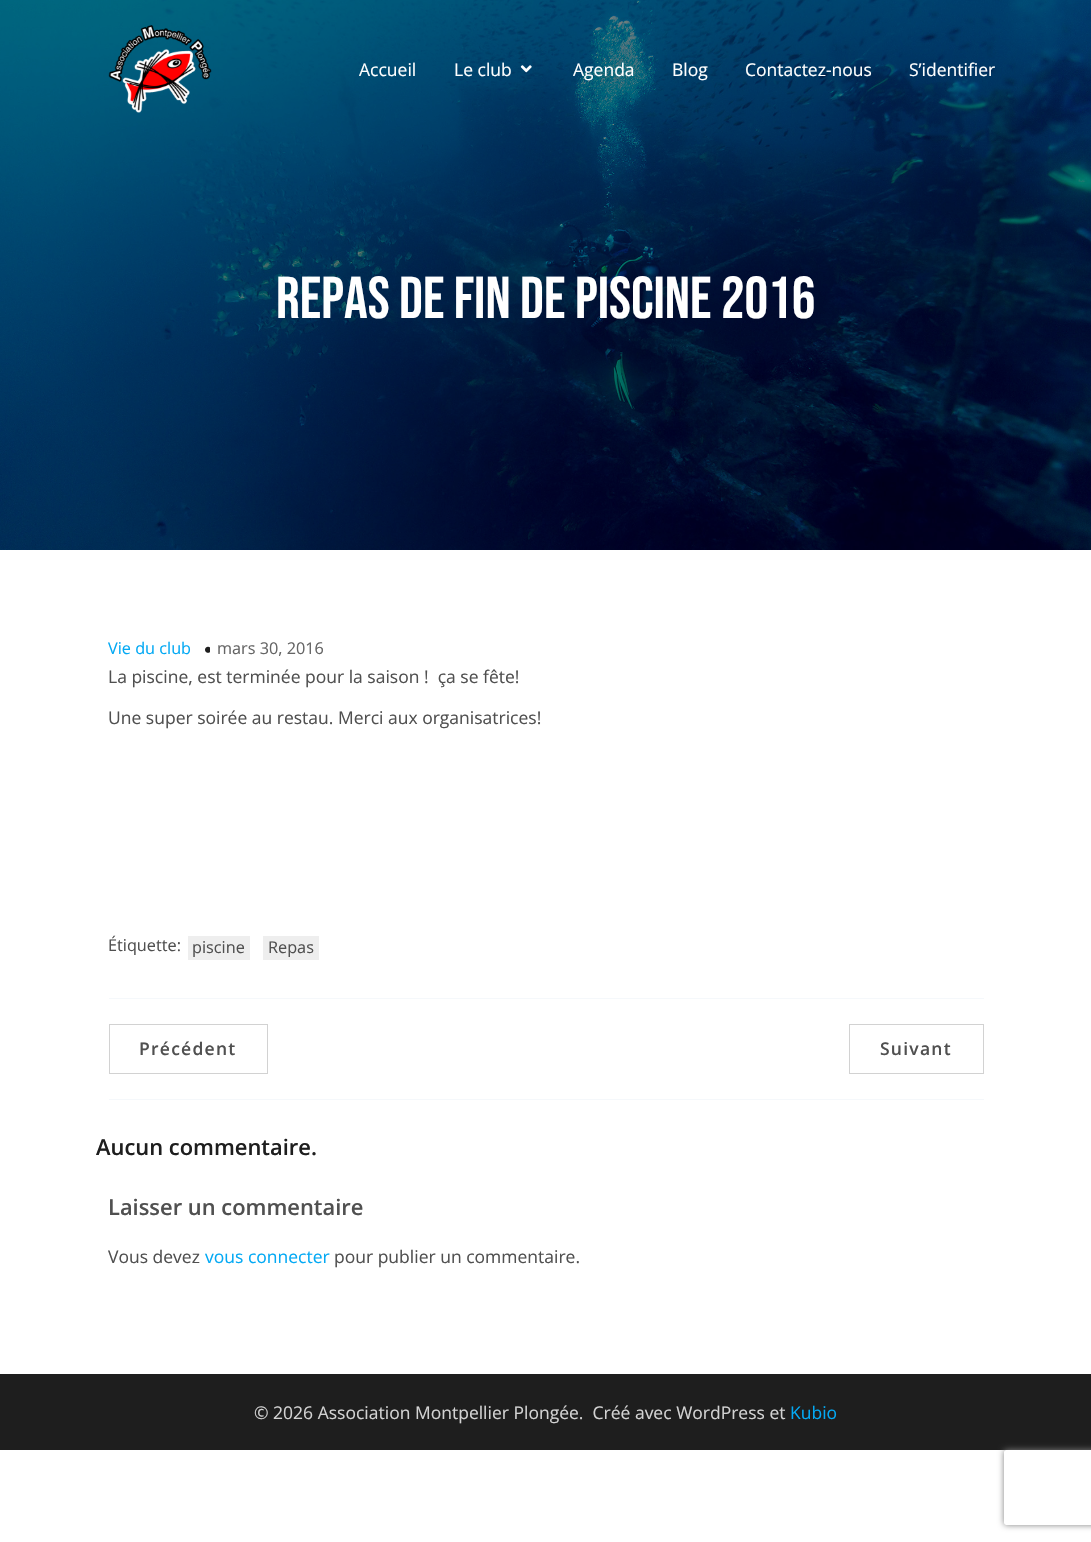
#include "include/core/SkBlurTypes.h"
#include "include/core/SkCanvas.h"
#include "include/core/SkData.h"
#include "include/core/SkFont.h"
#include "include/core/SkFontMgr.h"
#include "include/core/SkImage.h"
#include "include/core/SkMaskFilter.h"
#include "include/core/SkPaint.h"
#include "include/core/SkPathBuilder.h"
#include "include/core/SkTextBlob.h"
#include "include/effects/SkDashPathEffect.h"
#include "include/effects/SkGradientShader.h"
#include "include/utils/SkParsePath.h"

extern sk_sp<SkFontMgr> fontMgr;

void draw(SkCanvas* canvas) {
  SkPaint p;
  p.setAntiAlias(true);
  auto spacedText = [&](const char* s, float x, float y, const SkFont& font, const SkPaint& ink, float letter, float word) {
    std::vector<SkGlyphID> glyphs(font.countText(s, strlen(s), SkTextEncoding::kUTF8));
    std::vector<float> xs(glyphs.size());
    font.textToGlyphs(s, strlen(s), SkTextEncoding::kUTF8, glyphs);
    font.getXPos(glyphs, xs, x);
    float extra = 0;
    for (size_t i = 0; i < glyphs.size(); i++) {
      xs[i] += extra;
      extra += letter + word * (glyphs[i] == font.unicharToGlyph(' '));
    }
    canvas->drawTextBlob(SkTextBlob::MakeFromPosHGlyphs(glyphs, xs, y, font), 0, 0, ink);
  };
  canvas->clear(SK_ColorWHITE);
  canvas->drawImageRect(SkImages::DeferredFromEncodedData(SkData::MakeFromFileName("images/3.png")), SkRect::MakeLTRB(0, 0, 1091, 550), SkSamplingOptions());
  canvas->drawImageRect(SkImages::DeferredFromEncodedData(SkData::MakeFromFileName("images/1.png")), SkRect::MakeLTRB(108, 25, 212, 113), SkSamplingOptions());
  canvas->drawImageRect(SkImages::DeferredFromEncodedData(SkData::MakeFromFileName("images/2.png")), SkRect::MakeLTRB(520, 65, 532, 73), SkSamplingOptions());
  canvas->drawImageRect(SkImages::DeferredFromEncodedData(SkData::MakeFromFileName("images/4.png")), SkRect::MakeLTRB(205, 646, 210, 653), SkSamplingOptions());
  p.setColor(SkColorSetRGB(238, 238, 238));
  canvas->drawRect(SkRect::MakeLTRB(188, 936, 250, 960), p);
  canvas->drawRect(SkRect::MakeLTRB(263, 936, 319, 960), p);
  p.setColor(SkColorSetRGB(245, 248, 251));
  canvas->drawRect(SkRect::MakeLTRB(109, 998, 984, 999), p);
  canvas->drawRect(SkRect::MakeLTRB(109, 1099, 984, 1100), p);
  p.setStyle(SkPaint::kStroke_Style);
  p.setStrokeWidth(1);
  p.setColor(SkColorSetRGB(210, 210, 210));
  canvas->drawRect(SkRect::MakeLTRB(109.5f, 1024.5f, 267.5f, 1073.5f), p);
  canvas->drawRect(SkRect::MakeLTRB(849.5f, 1024.5f, 983.5f, 1073.5f), p);
  p.setStyle(SkPaint::kFill_Style);
  p.setColor(SkColorSetRGB(30, 30, 30));
  canvas->drawRect(SkRect::MakeLTRB(0, 1374, 1091, 1450), p);
  canvas->save();
  canvas->clipPath(SkPathBuilder(SkPathFillType::kEvenOdd).moveTo(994, 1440).lineTo(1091, 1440).lineTo(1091, 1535).lineTo(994, 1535).close().moveTo(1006.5f, 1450).lineTo(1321.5f, 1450).cubicTo(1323, 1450, 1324, 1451, 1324, 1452.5f).lineTo(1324, 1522.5f).cubicTo(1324, 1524, 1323, 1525, 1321.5f, 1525).lineTo(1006.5f, 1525).cubicTo(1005, 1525, 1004, 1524, 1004, 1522.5f).lineTo(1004, 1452.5f).cubicTo(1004, 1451, 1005, 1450, 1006.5f, 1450).close().detach(), true);
  p.setColor(SkColorSetRGB(128, 128, 128));
  p.setMaskFilter(SkMaskFilter::MakeBlur(kNormal_SkBlurStyle, 3));
  canvas->drawRoundRect(SkRect::MakeLTRB(1004, 1450, 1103, 1525), 2.5f, 2.5f, p);
  p.setMaskFilter(nullptr);
  canvas->restore();
  SkFont font1(fontMgr->matchFamilyStyle("Open Sans", SkFontStyle::Normal()), 17.5f);
  font1.setSubpixel(true);
  p.setColor(SK_ColorWHITE);
  canvas->drawString("Accueil", 359, 76, font1, p);
  canvas->drawString("Le club", 454, 76, font1, p);
  canvas->drawString("Agenda", 573, 76, font1, p);
  canvas->drawString("Blog", 672, 76, font1, p);
  canvas->drawString("Contactez-nous", 745, 76, font1, p);
  canvas->drawString("S’identifier", 909, 76, font1, p);
  SkFont font2(fontMgr->matchFamilyStyle("Bebas Neue", SkFontStyle::Normal()), 59);
  font2.setSubpixel(true);
  canvas->drawString("Repas de fin de piscine 2016", 276, 318, font2, p);
  SkFont font3(fontMgr->matchFamilyStyle("Open Sans", SkFontStyle::Normal()), 16.25f);
  font3.setSubpixel(true);
  p.setColor(SkColorSetRGB(3, 169, 244));
  canvas->drawString("Vie du club", 108, 654, font3, p);
  p.setColor(SkColorSetRGB(101, 101, 101));
  canvas->drawString("mars 30, 2016", 217, 654, font3, p);
  p.setColor(SkColorSetRGB(80, 80, 80));
  canvas->drawString("La piscine, est terminée pour la saison !  ça se fête!", 108, 683, font1, p);
  canvas->drawString("Une super soirée au restau. Merci aux organisatrices!", 108, 724, font1, p);
  canvas->drawString("Étiquette:", 108, 951, font3, p);
  canvas->drawString("piscine", 192, 953, font3, p);
  canvas->drawString("Repas", 268, 953, font3, p);
  SkFont font4(fontMgr->matchFamilyStyle("Open Sans", SkFontStyle(600, SkFontStyle::kNormal_Width, SkFontStyle::kUpright_Slant)), 17.5f);
  font4.setSubpixel(true);
  spacedText("Précédent", 139, 1055, font4, p, 1.25f, 0);
  spacedText("Suivant", 880, 1055, font4, p, 1.25f, 0);
  SkFont font5(fontMgr->matchFamilyStyle("Open Sans", SkFontStyle(600, SkFontStyle::kNormal_Width, SkFontStyle::kUpright_Slant)), 21.9f);
  font5.setSubpixel(true);
  p.setColor(SkColorSetRGB(30, 30, 30));
  canvas->drawString("Aucun commentaire.", 96, 1155, font5, p);
  p.setColor(SkColorSetRGB(80, 80, 80));
  canvas->drawString("Laisser un commentaire", 108, 1215, font5, p);
  canvas->drawString("Vous devez", 108, 1263, font1, p);
  p.setColor(SkColorSetRGB(3, 169, 244));
  canvas->drawString("vous connecter", 205, 1263, font1, p);
  p.setColor(SkColorSetRGB(80, 80, 80));
  canvas->drawString("pour publier un commentaire.", 334, 1263, font1, p);
  p.setColor(SkColorSetRGB(210, 210, 210));
  canvas->drawString("© 2026 Association Montpellier Plongée.  Créé avec WordPress et", 254, 1419, font1, p);
  p.setColor(SkColorSetRGB(3, 169, 244));
  canvas->drawString("Kubio", 790, 1419, font1, p);
}
